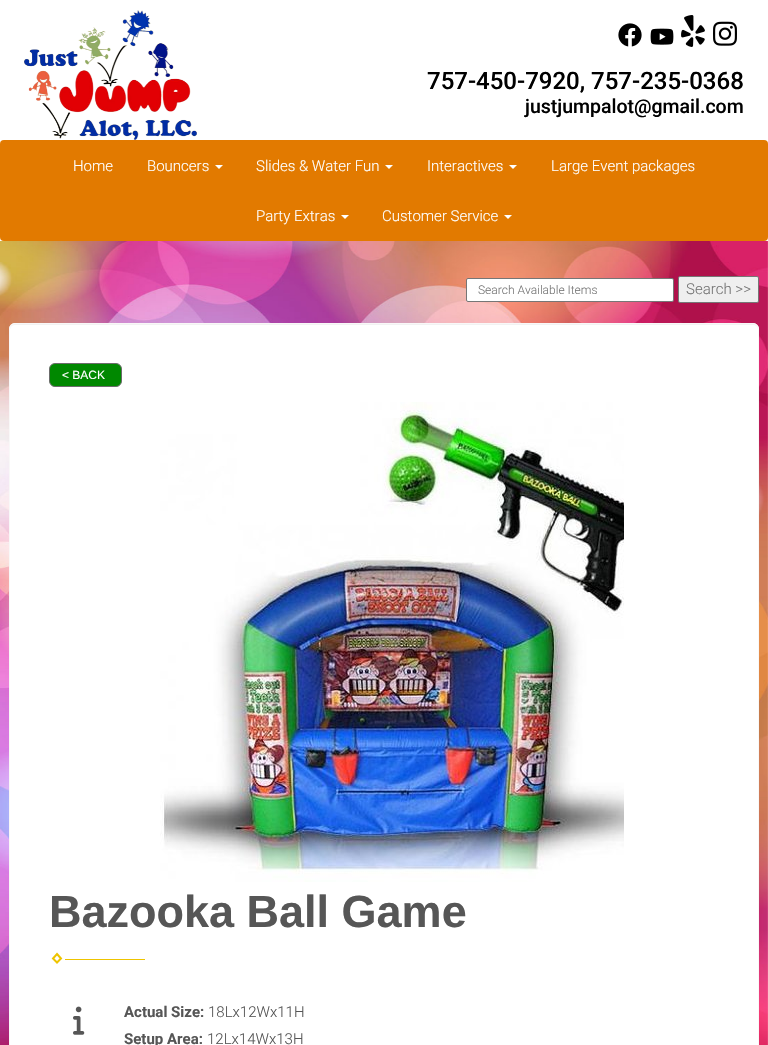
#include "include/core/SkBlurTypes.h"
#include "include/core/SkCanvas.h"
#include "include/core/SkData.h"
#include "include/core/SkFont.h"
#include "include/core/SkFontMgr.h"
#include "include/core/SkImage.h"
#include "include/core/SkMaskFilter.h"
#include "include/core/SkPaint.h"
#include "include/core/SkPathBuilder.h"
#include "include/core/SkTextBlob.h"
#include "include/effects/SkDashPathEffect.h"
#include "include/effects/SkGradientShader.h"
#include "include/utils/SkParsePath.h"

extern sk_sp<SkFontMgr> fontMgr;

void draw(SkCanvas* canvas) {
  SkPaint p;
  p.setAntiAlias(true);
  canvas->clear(SK_ColorWHITE);
  canvas->drawImageRect(SkImages::DeferredFromEncodedData(SkData::MakeFromFileName("images/1.png")), SkRect::MakeLTRB(0, 241, 768, 1045), SkSamplingOptions());
  canvas->drawImageRect(SkImages::DeferredFromEncodedData(SkData::MakeFromFileName("images/2.png")), SkRect::MakeLTRB(24, 10, 197, 140), SkSamplingOptions());
  canvas->drawImageRect(SkImages::DeferredFromEncodedData(SkData::MakeFromFileName("images/3.png")), SkRect::MakeLTRB(618, 23, 642, 47), SkSamplingOptions());
  canvas->drawImageRect(SkImages::DeferredFromEncodedData(SkData::MakeFromFileName("images/4.png")), SkRect::MakeLTRB(650, 28, 674, 45), SkSamplingOptions());
  canvas->drawImageRect(SkImages::DeferredFromEncodedData(SkData::MakeFromFileName("images/5.png")), SkRect::MakeLTRB(681, 15, 705, 47), SkSamplingOptions());
  canvas->drawImageRect(SkImages::DeferredFromEncodedData(SkData::MakeFromFileName("images/6.png")), SkRect::MakeLTRB(713, 21, 737, 46), SkSamplingOptions());
  p.setColor(SkColorSetRGB(226, 122, 0));
  canvas->drawRoundRect(SkRect::MakeLTRB(0, 140, 768, 241), 4, 4, p);
  p.setColor(SK_ColorWHITE);
  canvas->drawPath(SkPathBuilder().moveTo(215, 165).lineTo(223, 165).lineTo(219, 169).close().detach(), p);
  canvas->drawPath(SkPathBuilder().moveTo(385, 165).lineTo(393, 165).lineTo(389, 169).close().detach(), p);
  canvas->drawPath(SkPathBuilder().moveTo(509, 165).lineTo(517, 165).lineTo(513, 169).close().detach(), p);
  canvas->drawPath(SkPathBuilder().moveTo(341, 215).lineTo(349, 215).lineTo(345, 219).close().detach(), p);
  canvas->drawPath(SkPathBuilder().moveTo(504, 215).lineTo(512, 215).lineTo(508, 219).close().detach(), p);
  canvas->drawRoundRect(SkRect::MakeLTRB(466.5f, 278.5f, 673.5f, 301.5f), 1.5f, 1.5f, p);
  p.setStyle(SkPaint::kStroke_Style);
  p.setStrokeWidth(1);
  p.setColor(SkColorSetRGB(118, 118, 118));
  canvas->drawRoundRect(SkRect::MakeLTRB(466.5f, 278.5f, 673.5f, 301.5f), 1.5f, 1.5f, p);
  p.setStyle(SkPaint::kFill_Style);
  p.setColor(SkColorSetRGB(239, 239, 239));
  canvas->drawRoundRect(SkRect::MakeLTRB(678.5f, 276.5f, 758.5f, 302.5f), 1.5f, 1.5f, p);
  p.setStyle(SkPaint::kStroke_Style);
  p.setColor(SkColorSetRGB(118, 118, 118));
  canvas->drawRoundRect(SkRect::MakeLTRB(678.5f, 276.5f, 758.5f, 302.5f), 1.5f, 1.5f, p);
  p.setStyle(SkPaint::kFill_Style);
  p.setColor(SK_ColorWHITE);
  canvas->drawRoundRect(SkRect::MakeLTRB(9, 323, 759, 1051), 6, 6, p);
  p.setColor(SkColorSetRGB(242, 242, 242));
  canvas->drawPath(SkPathBuilder().moveTo(15, 325).lineTo(753, 325).cubicTo(756, 325, 758, 327, 758, 330).lineTo(758, 329).cubicTo(758, 326, 756, 324, 753, 324).lineTo(15, 324).cubicTo(12, 324, 10, 326, 10, 329).lineTo(10, 330).cubicTo(10, 327, 12, 325, 15, 325).close().detach(), p);
  p.setStyle(SkPaint::kStroke_Style);
  p.setColor(SkColorSetRGB(249, 248, 248));
  canvas->drawRoundRect(SkRect::MakeLTRB(9.5f, 323.5f, 758.5f, 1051.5f), 5.5f, 5.5f, p);
  p.setStyle(SkPaint::kFill_Style);
  p.setColor(SkColorSetRGB(0, 136, 0));
  canvas->drawRoundRect(SkRect::MakeLTRB(49.5f, 363.5f, 121.5f, 386.5f), 5.5f, 5.5f, p);
  p.setStyle(SkPaint::kStroke_Style);
  p.setColor(SkColorSetRGB(107, 107, 107));
  canvas->drawRoundRect(SkRect::MakeLTRB(49.5f, 363.5f, 121.5f, 386.5f), 5.5f, 5.5f, p);
  canvas->drawImageRect(SkImages::DeferredFromEncodedData(SkData::MakeFromFileName("images/7.png")), SkRect::MakeLTRB(160, 402, 624, 882), SkSamplingOptions());
  p.setStrokeWidth(2);
  p.setColor(SkColorSetRGB(238, 196, 0));
  canvas->drawPath(SkPathBuilder().moveTo(57, 954).lineTo(61, 958.5f).lineTo(57, 962.5f).lineTo(53, 958.5f).close().detach(), p);
  p.setStyle(SkPaint::kFill_Style);
  canvas->drawRect(SkRect::MakeLTRB(65, 959, 145, 960), p);
  canvas->drawImageRect(SkImages::DeferredFromEncodedData(SkData::MakeFromFileName("images/8.png")), SkRect::MakeLTRB(73, 1006, 85, 1035), SkSamplingOptions());
  SkFont font1(fontMgr->matchFamilyStyle("Roboto", SkFontStyle(500, SkFontStyle::kNormal_Width, SkFontStyle::kUpright_Slant)), 24);
  font1.setSubpixel(true);
  p.setColor(SK_ColorBLACK);
  canvas->drawString("757-450-7920, 757-235-0368", 427, 89, font1, p);
  SkFont font2(fontMgr->matchFamilyStyle("Roboto", SkFontStyle(500, SkFontStyle::kNormal_Width, SkFontStyle::kUpright_Slant)), 19.5f);
  font2.setSubpixel(true);
  canvas->drawString("justjumpalot@gmail.com", 525, 113, font2, p);
  SkFont font3(fontMgr->matchFamilyStyle("Roboto", SkFontStyle(300, SkFontStyle::kNormal_Width, SkFontStyle::kUpright_Slant)), 15);
  font3.setSubpixel(true);
  p.setColor(SK_ColorWHITE);
  canvas->drawString("Home", 73, 171, font3, p);
  canvas->drawString("Bouncers", 147, 171, font3, p);
  canvas->drawString("Slides & Water Fun", 256, 171, font3, p);
  canvas->drawString("Interactives", 427, 171, font3, p);
  canvas->drawString("Large Event packages", 551, 171, font3, p);
  canvas->drawString("Party Extras", 256, 221, font3, p);
  canvas->drawString("Customer Service", 382, 221, font3, p);
  SkFont font4(fontMgr->matchFamilyStyle("Roboto", SkFontStyle(300, SkFontStyle::kNormal_Width, SkFontStyle::kUpright_Slant)), 12);
  font4.setSubpixel(true);
  p.setColor(SkColorSetRGB(117, 117, 117));
  canvas->drawString("Search Available Items", 478, 294, font4, p);
  canvas->drawString("Search >>", 686, 294, font3, p);
  SkFont font5(fontMgr->matchFamilyStyle("Liberation Sans", SkFontStyle::Normal()), 12);
  font5.setSubpixel(true);
  p.setColor(SK_ColorWHITE);
  canvas->drawString("< BACK", 62, 379, font5, p);
  SkFont font6(fontMgr->matchFamilyStyle("Liberation Sans", SkFontStyle::Bold()), 45);
  font6.setSubpixel(true);
  p.setColor(SkColorSetRGB(86, 86, 86));
  canvas->drawString("Bazooka Ball Game", 49, 927, font6, p);
  SkFont font7(fontMgr->matchFamilyStyle("Roboto", SkFontStyle::Bold()), 15);
  font7.setSubpixel(true);
  canvas->drawString("Actual Size:", 124, 1017, font7, p);
  canvas->drawString("18Lx12Wx11H", 208, 1017, font3, p);
  canvas->drawString("Setup Area:", 124, 1044, font7, p);
  canvas->drawString("12Lx14Wx13H", 207, 1044, font3, p);
}
